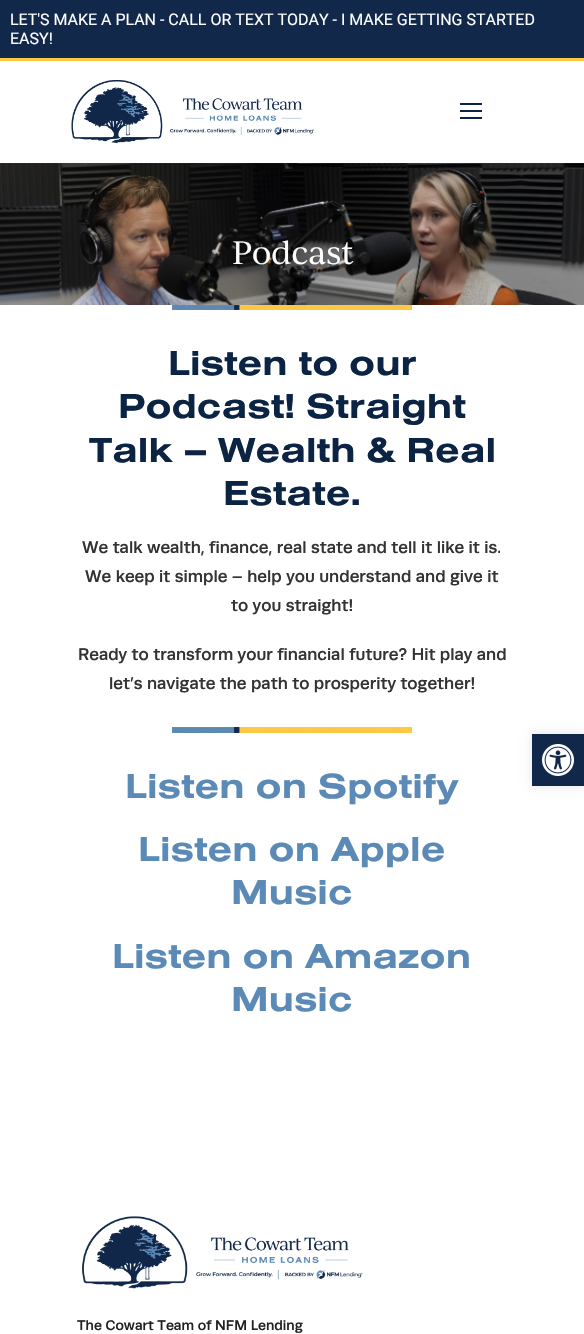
#include "include/core/SkBlurTypes.h"
#include "include/core/SkCanvas.h"
#include "include/core/SkData.h"
#include "include/core/SkFont.h"
#include "include/core/SkFontMgr.h"
#include "include/core/SkImage.h"
#include "include/core/SkMaskFilter.h"
#include "include/core/SkPaint.h"
#include "include/core/SkPathBuilder.h"
#include "include/core/SkTextBlob.h"
#include "include/effects/SkDashPathEffect.h"
#include "include/effects/SkGradientShader.h"
#include "include/utils/SkParsePath.h"

extern sk_sp<SkFontMgr> fontMgr;

void draw(SkCanvas* canvas) {
  SkPaint p;
  p.setAntiAlias(true);
  canvas->clear(SK_ColorWHITE);
  p.setColor(SkColorSetRGB(18, 40, 75));
  canvas->drawRect(SkRect::MakeLTRB(0, 0, 584, 58), p);
  p.setColor(SkColorSetRGB(255, 200, 67));
  canvas->drawRect(SkRect::MakeLTRB(0, 58, 584, 61), p);
  canvas->drawImageRect(SkImages::DeferredFromEncodedData(SkData::MakeFromFileName("images/1.png")), SkRect::MakeLTRB(71, 80, 314, 144), SkSamplingOptions());
  p.setColor(SkColorSetRGB(11, 36, 67));
  canvas->drawRect(SkRect::MakeLTRB(460, 103, 482, 105), p);
  canvas->drawRect(SkRect::MakeLTRB(460, 110, 482, 112), p);
  canvas->drawRect(SkRect::MakeLTRB(460, 117, 482, 119), p);
  canvas->drawImageRect(SkImages::DeferredFromEncodedData(SkData::MakeFromFileName("images/2.png")), SkRect::MakeLTRB(0, 163, 584, 305), SkSamplingOptions());
  canvas->drawImageRect(SkImages::DeferredFromEncodedData(SkData::MakeFromFileName("images/3.png")), SkRect::MakeLTRB(172, 305, 412, 310), SkSamplingOptions());
  canvas->drawImageRect(SkImages::DeferredFromEncodedData(SkData::MakeFromFileName("images/4.png")), SkRect::MakeLTRB(172, 727, 412, 733), SkSamplingOptions());
  canvas->drawImageRect(SkImages::DeferredFromEncodedData(SkData::MakeFromFileName("images/5.png")), SkRect::MakeLTRB(82, 1216, 363, 1289), SkSamplingOptions());
  p.setColor(SkColorSetARGB(26, 0, 0, 0));
  p.setMaskFilter(SkMaskFilter::MakeBlur(kNormal_SkBlurStyle, 5));
  canvas->drawRect(SkRect::MakeLTRB(532, 734, 584, 786), p);
  p.setMaskFilter(nullptr);
  p.setColor(SkColorSetRGB(18, 40, 75));
  canvas->drawRect(SkRect::MakeLTRB(532, 734, 584, 786), p);
  canvas->drawImageRect(SkImages::DeferredFromEncodedData(SkData::MakeFromFileName("images/6.png")), SkRect::MakeLTRB(542, 744, 574, 776), SkSamplingOptions());
  SkFont font1(fontMgr->matchFamilyStyle("Roboto", SkFontStyle::Normal()), 16);
  font1.setSubpixel(true);
  p.setColor(SK_ColorWHITE);
  canvas->drawString("LET'S MAKE A PLAN - CALL OR TEXT TODAY - I MAKE GETTING STARTED", 10, 25, font1, p);
  canvas->drawString("EASY!", 10, 44, font1, p);
  SkFont font2(fontMgr->matchFamilyStyle("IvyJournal", SkFontStyle::Normal()), 31);
  font2.setSubpixel(true);
  canvas->drawString("Podcast", 232, 264, font2, p);
  SkFont font3(fontMgr->matchFamilyStyle("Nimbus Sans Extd", SkFontStyle::Bold()), 36);
  font3.setSubpixel(true);
  p.setColor(SkColorSetRGB(11, 36, 67));
  canvas->drawString("Listen to our", 168, 375, font3, p);
  canvas->drawString("Podcast! Straight", 118, 418, font3, p);
  canvas->drawString("Talk – Wealth & Real", 89, 462, font3, p);
  canvas->drawString("Estate.", 223, 505, font3, p);
  SkFont font4(fontMgr->matchFamilyStyle("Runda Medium", SkFontStyle(500, SkFontStyle::kNormal_Width, SkFontStyle::kUpright_Slant)), 17);
  font4.setSubpixel(true);
  p.setColor(SkColorSetRGB(51, 51, 51));
  canvas->drawString("We talk wealth, finance, real state and tell it like it is.", 82, 553, font4, p);
  canvas->drawString("We keep it simple – help you understand and give it", 85, 582, font4, p);
  canvas->drawString("to you straight!", 231, 611, font4, p);
  canvas->drawString("Ready to transform your financial future? Hit play and", 78, 660, font4, p);
  canvas->drawString("let’s navigate the path to prosperity together!", 109, 689, font4, p);
  p.setColor(SkColorSetRGB(91, 138, 183));
  canvas->drawString("Listen on Spotify", 125, 798, font3, p);
  canvas->drawString("Listen on Apple", 138, 861, font3, p);
  canvas->drawString("Music", 231, 904, font3, p);
  canvas->drawString("Listen on Amazon", 112, 968, font3, p);
  canvas->drawString("Music", 231, 1011, font3, p);
  SkFont font5(fontMgr->matchFamilyStyle("Runda Medium", SkFontStyle(500, SkFontStyle::kNormal_Width, SkFontStyle::kUpright_Slant)), 14);
  font5.setSubpixel(true);
  p.setColor(SkColorSetRGB(34, 34, 34));
  canvas->drawString("The Cowart Team of NFM Lending", 77, 1330, font5, p);
}
